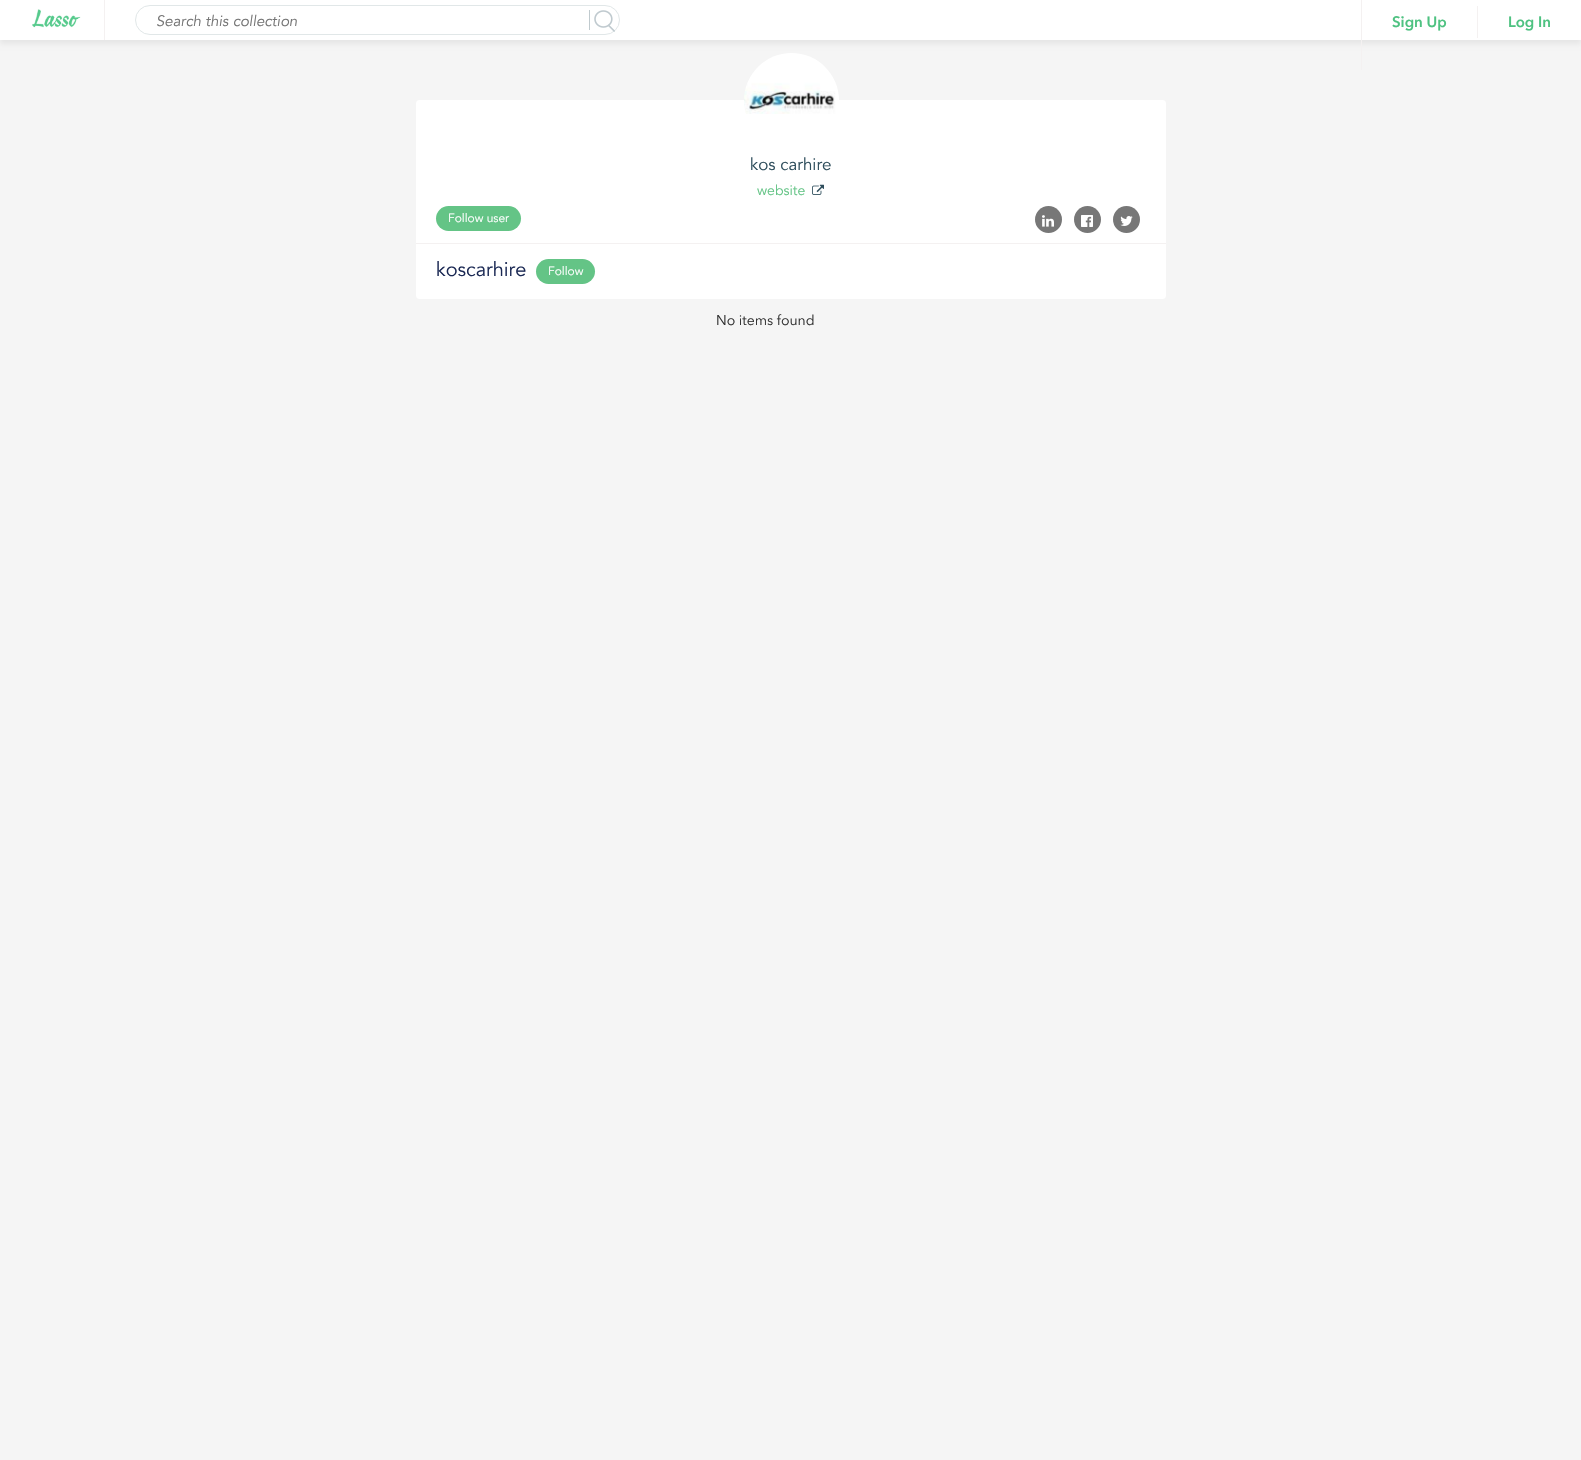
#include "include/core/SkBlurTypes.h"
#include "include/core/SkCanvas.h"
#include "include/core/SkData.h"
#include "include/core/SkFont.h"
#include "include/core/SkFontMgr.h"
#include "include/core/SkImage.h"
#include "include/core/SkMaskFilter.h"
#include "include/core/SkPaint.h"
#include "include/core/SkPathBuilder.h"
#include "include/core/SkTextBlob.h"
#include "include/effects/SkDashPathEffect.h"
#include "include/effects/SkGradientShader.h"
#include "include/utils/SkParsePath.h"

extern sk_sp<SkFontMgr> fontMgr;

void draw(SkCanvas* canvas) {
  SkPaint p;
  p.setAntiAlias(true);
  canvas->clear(SkColorSetRGB(245, 245, 245));
  p.setColor(SkColorSetRGB(230, 230, 230));
  p.setMaskFilter(SkMaskFilter::MakeBlur(kNormal_SkBlurStyle, 2.5f));
  canvas->drawRect(SkRect::MakeLTRB(0, 4, 1581, 44), p);
  p.setMaskFilter(nullptr);
  p.setColor(SK_ColorWHITE);
  canvas->drawRect(SkRect::MakeLTRB(0, 0, 1581, 40), p);
  p.setColor(SkColorSetRGB(244, 241, 241));
  canvas->drawRect(SkRect::MakeLTRB(104, 0, 105, 40), p);
  canvas->drawImageRect(SkImages::DeferredFromEncodedData(SkData::MakeFromFileName("images/1.png")), SkRect::MakeLTRB(32, 9, 81, 28), SkSamplingOptions());
  p.setStyle(SkPaint::kStroke_Style);
  p.setStrokeWidth(1);
  p.setColor(SkColorSetRGB(225, 231, 232));
  canvas->drawRoundRect(SkRect::MakeLTRB(135.5f, 5.5f, 619.5f, 34.5f), 14.5f, 14.5f, p);
  p.setStyle(SkPaint::kFill_Style);
  p.setColor(SkColorSetRGB(192, 202, 206));
  canvas->drawRect(SkRect::MakeLTRB(589, 10, 590, 30), p);
  canvas->drawImageRect(SkImages::DeferredFromEncodedData(SkData::MakeFromFileName("images/2.png")), SkRect::MakeLTRB(594, 10, 615, 32), SkSamplingOptions());
  p.setColor(SkColorSetRGB(244, 241, 241));
  canvas->drawRect(SkRect::MakeLTRB(1361, 0, 1362, 70), p);
  canvas->drawRect(SkRect::MakeLTRB(1477, 6, 1478, 38), p);
  p.setColor(SK_ColorWHITE);
  canvas->drawPath(SkPathBuilder().moveTo(419, 100).lineTo(1163, 100).cubicTo(1164.5f, 100, 1166, 101.5f, 1166, 103).lineTo(1166, 243).lineTo(416, 243).lineTo(416, 103).cubicTo(416, 101.5f, 417.5f, 100, 419, 100).close().detach(), p);
  canvas->drawImageRect(SkImages::DeferredFromEncodedData(SkData::MakeFromFileName("images/3.png")), SkRect::MakeLTRB(744, 53, 839, 114), SkSamplingOptions());
  canvas->drawImageRect(SkImages::DeferredFromEncodedData(SkData::MakeFromFileName("images/4.png")), SkRect::MakeLTRB(812, 184, 824, 195), SkSamplingOptions());
  p.setColor(SkColorSetRGB(100, 196, 134));
  canvas->drawRoundRect(SkRect::MakeLTRB(436, 206, 521, 231), 12.5f, 12.5f, p);
  p.setColor(SkColorSetRGB(119, 119, 119));
  canvas->drawCircle(1048.5f, 219.5f, 13.5f, p);
  canvas->drawImageRect(SkImages::DeferredFromEncodedData(SkData::MakeFromFileName("images/5.png")), SkRect::MakeLTRB(1042, 215, 1054, 227), SkSamplingOptions());
  canvas->drawCircle(1087.5f, 219.5f, 13.5f, p);
  canvas->drawImageRect(SkImages::DeferredFromEncodedData(SkData::MakeFromFileName("images/6.png")), SkRect::MakeLTRB(1081, 215, 1093, 227), SkSamplingOptions());
  canvas->drawCircle(1126.5f, 219.5f, 13.5f, p);
  canvas->drawImageRect(SkImages::DeferredFromEncodedData(SkData::MakeFromFileName("images/7.png")), SkRect::MakeLTRB(1120, 216, 1133, 226), SkSamplingOptions());
  p.setColor(SK_ColorWHITE);
  canvas->drawPath(SkPathBuilder().moveTo(416, 243).lineTo(1166, 243).lineTo(1166, 296).cubicTo(1166, 297.5f, 1164.5f, 299, 1163, 299).lineTo(419, 299).cubicTo(417.5f, 299, 416, 297.5f, 416, 296).close().detach(), p);
  p.setColor(SkColorSetRGB(244, 241, 241));
  canvas->drawRect(SkRect::MakeLTRB(416, 243, 1166, 244), p);
  p.setColor(SkColorSetRGB(100, 196, 134));
  canvas->drawRoundRect(SkRect::MakeLTRB(536, 259, 595, 284), 12.5f, 12.5f, p);
  SkFont font1(fontMgr->matchFamilyStyle("Avenir", SkFontStyle::Italic()), 15);
  font1.setSubpixel(true);
  p.setColor(SkColorSetRGB(117, 117, 117));
  canvas->drawString("Search this collection", 156, 26, font1, p);
  SkFont font2(fontMgr->matchFamilyStyle("Avenir Next", SkFontStyle(600, SkFontStyle::kNormal_Width, SkFontStyle::kUpright_Slant)), 15);
  font2.setSubpixel(true);
  p.setColor(SkColorSetRGB(78, 194, 129));
  canvas->drawString("Sign Up", 1392, 27, font2, p);
  canvas->drawString("Log In", 1508, 27, font2, p);
  SkFont font3(fontMgr->matchFamilyStyle("Avenir", SkFontStyle::Normal()), 17);
  font3.setSubpixel(true);
  p.setColor(SkColorSetRGB(47, 78, 92));
  canvas->drawString("kos carhire", 750, 170, font3, p);
  SkFont font4(fontMgr->matchFamilyStyle("Avenir", SkFontStyle::Normal()), 14);
  font4.setSubpixel(true);
  p.setColor(SkColorSetRGB(100, 196, 134));
  canvas->drawString("website", 757, 195, font4, p);
  SkFont font5(fontMgr->matchFamilyStyle("Avenir", SkFontStyle::Normal()), 12);
  font5.setSubpixel(true);
  p.setColor(SK_ColorWHITE);
  canvas->drawString("Follow user", 448, 222, font5, p);
  SkFont font6(fontMgr->matchFamilyStyle("Avenir", SkFontStyle::Normal()), 20);
  font6.setSubpixel(true);
  p.setColor(SkColorSetRGB(27, 41, 84));
  canvas->drawString("koscarhire", 436, 276, font6, p);
  p.setColor(SK_ColorWHITE);
  canvas->drawString("Follow", 548, 275, font5, p);
  SkFont font7(fontMgr->matchFamilyStyle("Avenir Next", SkFontStyle::Normal()), 14);
  font7.setSubpixel(true);
  p.setColor(SkColorSetRGB(51, 51, 51));
  canvas->drawString("No items found", 716, 325, font7, p);
}
